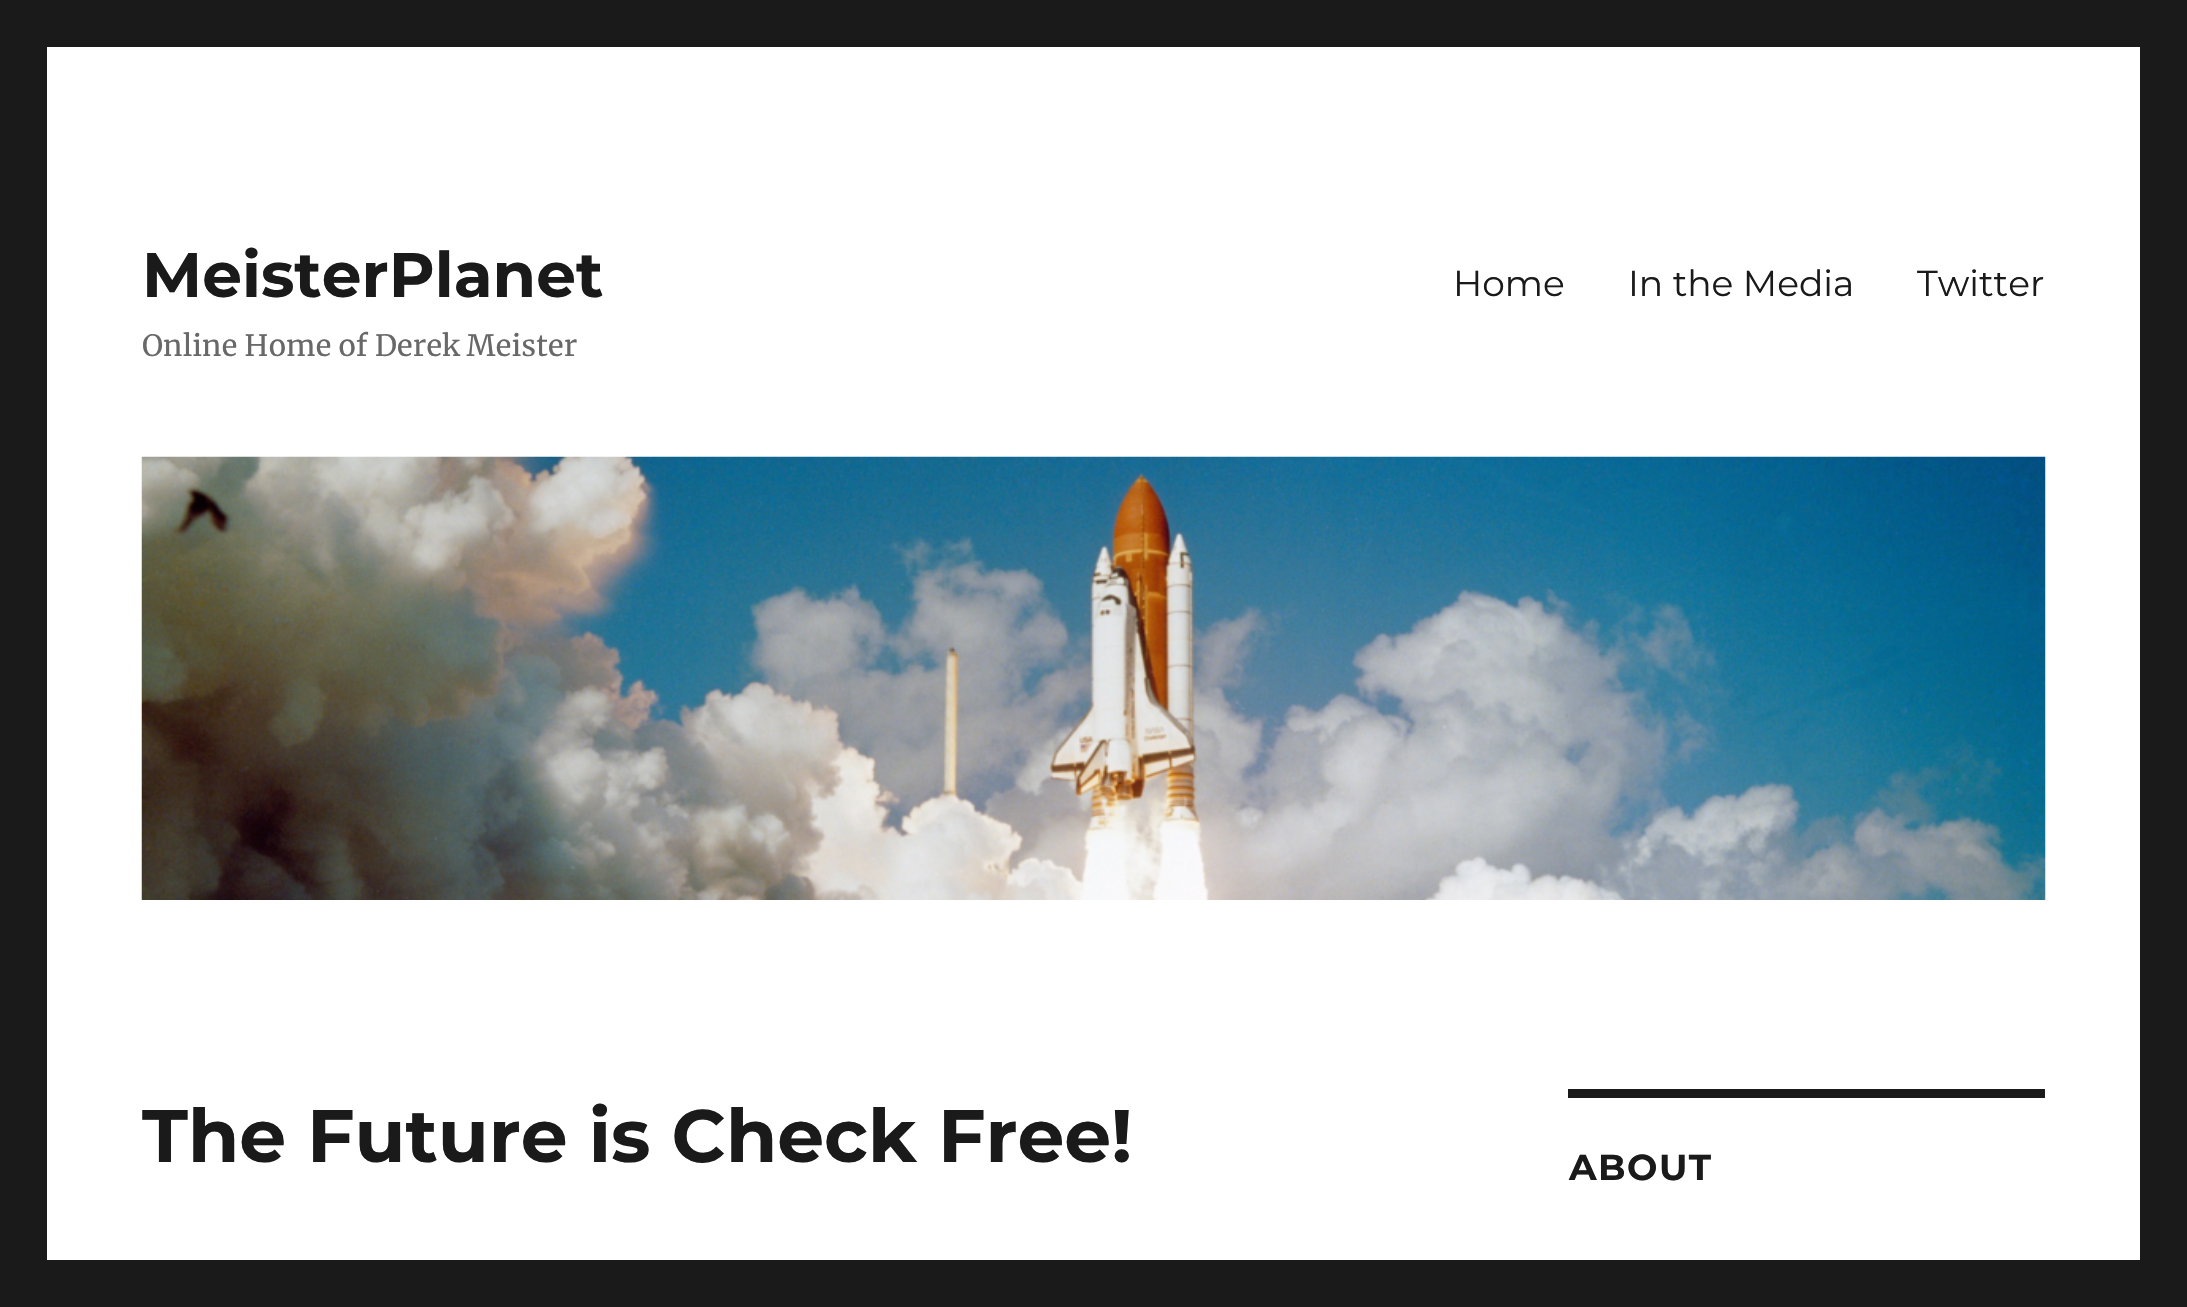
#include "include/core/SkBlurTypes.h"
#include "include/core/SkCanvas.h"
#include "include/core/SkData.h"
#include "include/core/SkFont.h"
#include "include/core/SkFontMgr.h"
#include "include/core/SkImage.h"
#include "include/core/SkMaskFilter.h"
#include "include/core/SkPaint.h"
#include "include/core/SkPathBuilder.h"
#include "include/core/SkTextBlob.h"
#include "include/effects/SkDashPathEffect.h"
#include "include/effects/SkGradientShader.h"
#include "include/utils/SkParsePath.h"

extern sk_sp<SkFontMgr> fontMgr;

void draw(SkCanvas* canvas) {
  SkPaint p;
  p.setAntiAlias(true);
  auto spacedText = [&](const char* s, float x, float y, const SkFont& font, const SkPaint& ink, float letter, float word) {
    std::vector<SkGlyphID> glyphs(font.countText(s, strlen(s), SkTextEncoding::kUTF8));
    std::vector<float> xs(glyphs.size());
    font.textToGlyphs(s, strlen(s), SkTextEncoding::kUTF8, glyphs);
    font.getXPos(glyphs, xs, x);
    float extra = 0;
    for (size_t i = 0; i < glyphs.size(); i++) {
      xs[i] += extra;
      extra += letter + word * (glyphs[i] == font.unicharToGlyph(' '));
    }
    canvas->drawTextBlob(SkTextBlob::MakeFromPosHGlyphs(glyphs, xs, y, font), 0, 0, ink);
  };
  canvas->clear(SkColorSetRGB(26, 26, 26));
  p.setColor(SK_ColorWHITE);
  canvas->drawRect(SkRect::MakeLTRB(47, 47, 2140, 1260), p);
  canvas->drawImageRect(SkImages::DeferredFromEncodedData(SkData::MakeFromFileName("images/1.png")), SkRect::MakeLTRB(141, 456, 2046, 900), SkSamplingOptions());
  p.setColor(SkColorSetRGB(26, 26, 26));
  canvas->drawRect(SkRect::MakeLTRB(1568, 1089, 2045, 1098), p);
  SkFont font1(fontMgr->matchFamilyStyle("Montserrat", SkFontStyle(100, SkFontStyle::kNormal_Width, SkFontStyle::kUpright_Slant)), 63);
  font1.setSubpixel(true);
  canvas->drawString("MeisterPlanet", 142, 297, font1, p);
  SkFont font2(fontMgr->matchFamilyStyle("Merriweather", SkFontStyle::Normal()), 29.25f);
  font2.setSubpixel(true);
  p.setColor(SkColorSetRGB(104, 104, 104));
  canvas->drawString("Online Home of Derek Meister", 142, 356, font2, p);
  SkFont font3(fontMgr->matchFamilyStyle("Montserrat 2", SkFontStyle(100, SkFontStyle::kNormal_Width, SkFontStyle::kUpright_Slant)), 36);
  font3.setSubpixel(true);
  p.setColor(SkColorSetRGB(26, 26, 26));
  canvas->drawString("Home", 1453, 296, font3, p);
  canvas->drawString("In the Media", 1628, 296, font3, p);
  canvas->drawString("Twitter", 1917, 296, font3, p);
  SkFont font4(fontMgr->matchFamilyStyle("Montserrat", SkFontStyle(100, SkFontStyle::kNormal_Width, SkFontStyle::kUpright_Slant)), 74.25f);
  font4.setSubpixel(true);
  canvas->drawString("The Future is Check Free!", 142, 1162, font4, p);
  SkFont font5(fontMgr->matchFamilyStyle("Montserrat", SkFontStyle(100, SkFontStyle::kNormal_Width, SkFontStyle::kUpright_Slant)), 36);
  font5.setSubpixel(true);
  spacedText("ABOUT", 1569, 1180, font5, p, 1.5f, 0);
}
